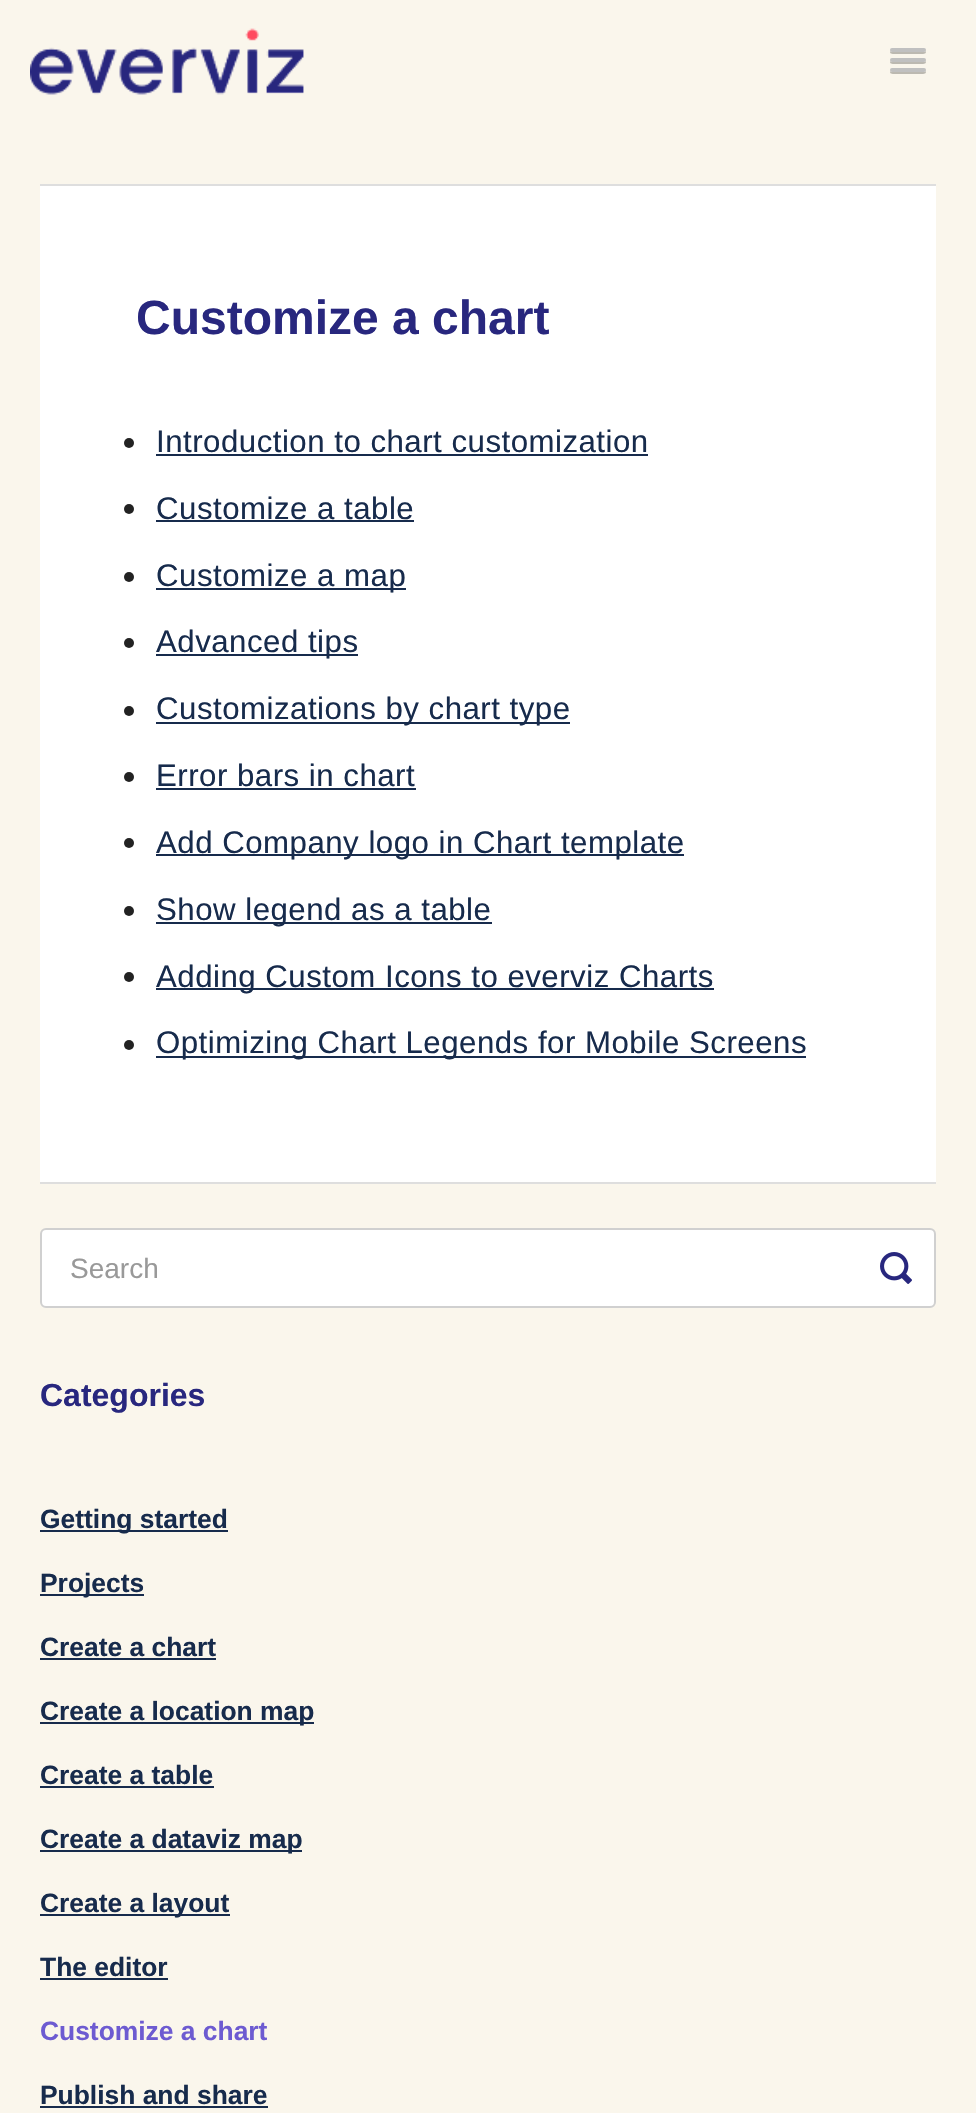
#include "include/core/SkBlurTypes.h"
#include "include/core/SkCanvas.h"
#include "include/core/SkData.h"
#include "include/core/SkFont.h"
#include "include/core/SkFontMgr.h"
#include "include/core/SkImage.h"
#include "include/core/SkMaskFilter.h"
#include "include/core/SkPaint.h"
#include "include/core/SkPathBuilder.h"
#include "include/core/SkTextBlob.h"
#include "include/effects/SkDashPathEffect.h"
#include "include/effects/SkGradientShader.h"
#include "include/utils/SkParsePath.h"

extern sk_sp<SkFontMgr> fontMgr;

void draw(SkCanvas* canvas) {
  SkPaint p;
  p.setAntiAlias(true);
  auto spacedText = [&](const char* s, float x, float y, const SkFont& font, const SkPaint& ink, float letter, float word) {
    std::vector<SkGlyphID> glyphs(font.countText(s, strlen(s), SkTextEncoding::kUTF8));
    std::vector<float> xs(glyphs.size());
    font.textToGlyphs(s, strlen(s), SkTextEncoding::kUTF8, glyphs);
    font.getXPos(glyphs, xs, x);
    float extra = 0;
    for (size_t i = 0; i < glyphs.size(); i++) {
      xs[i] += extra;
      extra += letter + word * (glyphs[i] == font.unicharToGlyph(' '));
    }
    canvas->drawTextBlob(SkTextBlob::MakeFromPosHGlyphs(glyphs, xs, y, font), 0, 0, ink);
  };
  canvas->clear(SkColorSetRGB(250, 246, 236));
  canvas->drawImageRect(SkImages::DeferredFromEncodedData(SkData::MakeFromFileName("images/1.png")), SkRect::MakeLTRB(30, 28, 304, 95), SkSamplingOptions());
  p.setColor(SkColorSetRGB(188, 185, 177));
  canvas->drawPath(SkPathBuilder().moveTo(890.5f, 51).cubicTo(888, 55, 897, 54, 897.5f, 54).lineTo(918.5f, 54).cubicTo(919, 54, 928, 55, 925.5f, 51).cubicTo(925.5f, 51.5f, 924.5f, 52, 924, 52).lineTo(892, 52).cubicTo(891.5f, 52, 890.5f, 51.5f, 890.5f, 51).close().detach(), p);
  p.setColor(SkColorSetRGB(192, 192, 192));
  canvas->drawRoundRect(SkRect::MakeLTRB(890, 48, 926, 52), 2, 2, p);
  p.setColor(SkColorSetRGB(188, 185, 177));
  canvas->drawPath(SkPathBuilder().moveTo(890.5f, 61).cubicTo(888, 65, 897, 64, 897.5f, 64).lineTo(918.5f, 64).cubicTo(919, 64, 928, 65, 925.5f, 61).cubicTo(925.5f, 61.5f, 924.5f, 62, 924, 62).lineTo(892, 62).cubicTo(891.5f, 62, 890.5f, 61.5f, 890.5f, 61).close().detach(), p);
  p.setColor(SkColorSetRGB(192, 192, 192));
  canvas->drawRoundRect(SkRect::MakeLTRB(890, 58, 926, 62), 2, 2, p);
  p.setColor(SkColorSetRGB(188, 185, 177));
  canvas->drawPath(SkPathBuilder().moveTo(890.5f, 71).cubicTo(888, 75, 897, 74, 897.5f, 74).lineTo(918.5f, 74).cubicTo(919, 74, 928, 75, 925.5f, 71).cubicTo(925.5f, 71.5f, 924.5f, 72, 924, 72).lineTo(892, 72).cubicTo(891.5f, 72, 890.5f, 71.5f, 890.5f, 71).close().detach(), p);
  p.setColor(SkColorSetRGB(192, 192, 192));
  canvas->drawRoundRect(SkRect::MakeLTRB(890, 68, 926, 72), 2, 2, p);
  p.setColor(SK_ColorWHITE);
  canvas->drawRect(SkRect::MakeLTRB(40, 186, 936, 1182), p);
  p.setColor(SkColorSetRGB(222, 222, 222));
  canvas->drawRect(SkRect::MakeLTRB(40, 184, 936, 186), p);
  canvas->drawRect(SkRect::MakeLTRB(40, 1182, 936, 1184), p);
  p.setColor(SkColorSetRGB(34, 34, 34));
  canvas->drawCircle(129, 443, 5, p);
  p.setColor(SkColorSetRGB(23, 43, 76));
  canvas->drawRect(SkRect::MakeLTRB(156, 454, 648, 456), p);
  p.setColor(SkColorSetRGB(34, 34, 34));
  canvas->drawCircle(129, 509, 5, p);
  p.setColor(SkColorSetRGB(23, 43, 76));
  canvas->drawRect(SkRect::MakeLTRB(156, 520, 414, 522), p);
  p.setColor(SkColorSetRGB(34, 34, 34));
  canvas->drawCircle(129, 577, 5, p);
  p.setColor(SkColorSetRGB(23, 43, 76));
  canvas->drawRect(SkRect::MakeLTRB(156, 588, 406, 590), p);
  p.setColor(SkColorSetRGB(34, 34, 34));
  canvas->drawCircle(129, 643, 5, p);
  p.setColor(SkColorSetRGB(23, 43, 76));
  canvas->drawRect(SkRect::MakeLTRB(156, 654, 358, 656), p);
  p.setColor(SkColorSetRGB(34, 34, 34));
  canvas->drawCircle(129, 711, 5, p);
  p.setColor(SkColorSetRGB(23, 43, 76));
  canvas->drawRect(SkRect::MakeLTRB(156, 722, 570, 724), p);
  p.setColor(SkColorSetRGB(34, 34, 34));
  canvas->drawCircle(129, 777, 5, p);
  p.setColor(SkColorSetRGB(23, 43, 76));
  canvas->drawRect(SkRect::MakeLTRB(156, 788, 416, 790), p);
  p.setColor(SkColorSetRGB(34, 34, 34));
  canvas->drawCircle(129, 843, 5, p);
  p.setColor(SkColorSetRGB(23, 43, 76));
  canvas->drawRect(SkRect::MakeLTRB(156, 854, 684, 856), p);
  p.setColor(SkColorSetRGB(34, 34, 34));
  canvas->drawCircle(129, 911, 5, p);
  p.setColor(SkColorSetRGB(23, 43, 76));
  canvas->drawRect(SkRect::MakeLTRB(156, 922, 492, 924), p);
  p.setColor(SkColorSetRGB(34, 34, 34));
  canvas->drawCircle(129, 977, 5, p);
  p.setColor(SkColorSetRGB(23, 43, 76));
  canvas->drawRect(SkRect::MakeLTRB(156, 988, 714, 990), p);
  p.setColor(SkColorSetRGB(34, 34, 34));
  canvas->drawCircle(129, 1045, 5, p);
  p.setColor(SkColorSetRGB(23, 43, 76));
  canvas->drawRect(SkRect::MakeLTRB(156, 1056, 806, 1058), p);
  p.setColor(SK_ColorWHITE);
  canvas->drawRoundRect(SkRect::MakeLTRB(41, 1229, 935, 1307), 5, 5, p);
  p.setStyle(SkPaint::kStroke_Style);
  p.setStrokeWidth(2);
  p.setColor(SkColorSetRGB(208, 208, 208));
  canvas->drawRoundRect(SkRect::MakeLTRB(41, 1229, 935, 1307), 5, 5, p);
  canvas->drawImageRect(SkImages::DeferredFromEncodedData(SkData::MakeFromFileName("images/2.png")), SkRect::MakeLTRB(880, 1252, 912, 1284), SkSamplingOptions());
  p.setStyle(SkPaint::kFill_Style);
  p.setColor(SkColorSetRGB(23, 43, 76));
  canvas->drawRect(SkRect::MakeLTRB(40, 1530, 228, 1532), p);
  canvas->drawRect(SkRect::MakeLTRB(40, 1594, 144, 1596), p);
  canvas->drawRect(SkRect::MakeLTRB(40, 1658, 216, 1660), p);
  canvas->drawRect(SkRect::MakeLTRB(40, 1722, 314, 1724), p);
  canvas->drawRect(SkRect::MakeLTRB(40, 1786, 214, 1788), p);
  canvas->drawRect(SkRect::MakeLTRB(40, 1850, 302, 1852), p);
  canvas->drawRect(SkRect::MakeLTRB(40, 1914, 230, 1916), p);
  canvas->drawRect(SkRect::MakeLTRB(40, 1978, 168, 1980), p);
  canvas->drawRect(SkRect::MakeLTRB(40, 2106, 268, 2108), p);
  SkFont font1(fontMgr->matchFamilyStyle("Liberation Sans", SkFontStyle::Bold()), 48);
  font1.setSubpixel(true);
  p.setColor(SkColorSetRGB(40, 39, 126));
  canvas->drawString("Customize a chart", 136, 334, font1, p);
  SkFont font2(fontMgr->matchFamilyStyle("Liberation Sans", SkFontStyle::Normal()), 31.2f);
  font2.setSubpixel(true);
  p.setColor(SkColorSetRGB(23, 43, 76));
  spacedText("Introduction to chart customization", 156, 452, font2, p, 0.5f, 0);
  spacedText("Customize a table", 156, 519, font2, p, 0.5f, 0);
  spacedText("Customize a map", 156, 586, font2, p, 0.5f, 0);
  spacedText("Advanced tips", 156, 652, font2, p, 0.5f, 0);
  spacedText("Customizations by chart type", 156, 719, font2, p, 0.5f, 0);
  spacedText("Error bars in chart", 156, 786, font2, p, 0.5f, 0);
  spacedText("Add Company logo in Chart template", 156, 853, font2, p, 0.5f, 0);
  spacedText("Show legend as a table", 156, 920, font2, p, 0.5f, 0);
  spacedText("Adding Custom Icons to everviz Charts", 156, 987, font2, p, 0.5f, 0);
  spacedText("Optimizing Chart Legends for Mobile Screens", 156, 1053, font2, p, 0.5f, 0);
  SkFont font3(fontMgr->matchFamilyStyle("Liberation Sans", SkFontStyle::Normal()), 28);
  font3.setSubpixel(true);
  p.setColor(SkColorSetRGB(153, 153, 153));
  canvas->drawString("Search", 70, 1278, font3, p);
  SkFont font4(fontMgr->matchFamilyStyle("Liberation Sans", SkFontStyle::Bold()), 32);
  font4.setSubpixel(true);
  p.setColor(SkColorSetRGB(40, 39, 126));
  canvas->drawString("Categories", 40, 1406, font4, p);
  SkFont font5(fontMgr->matchFamilyStyle("Liberation Sans", SkFontStyle::Bold()), 26.4f);
  font5.setSubpixel(true);
  p.setColor(SkColorSetRGB(23, 43, 76));
  canvas->drawString("Getting started", 40, 1528, font5, p);
  canvas->drawString("Projects", 40, 1592, font5, p);
  canvas->drawString("Create a chart", 40, 1656, font5, p);
  canvas->drawString("Create a location map", 40, 1720, font5, p);
  canvas->drawString("Create a table", 40, 1784, font5, p);
  canvas->drawString("Create a dataviz map", 40, 1848, font5, p);
  canvas->drawString("Create a layout", 40, 1912, font5, p);
  canvas->drawString("The editor", 40, 1976, font5, p);
  p.setColor(SkColorSetRGB(109, 91, 209));
  canvas->drawString("Customize a chart", 40, 2040, font5, p);
  p.setColor(SkColorSetRGB(23, 43, 76));
  canvas->drawString("Publish and share", 40, 2104, font5, p);
}
